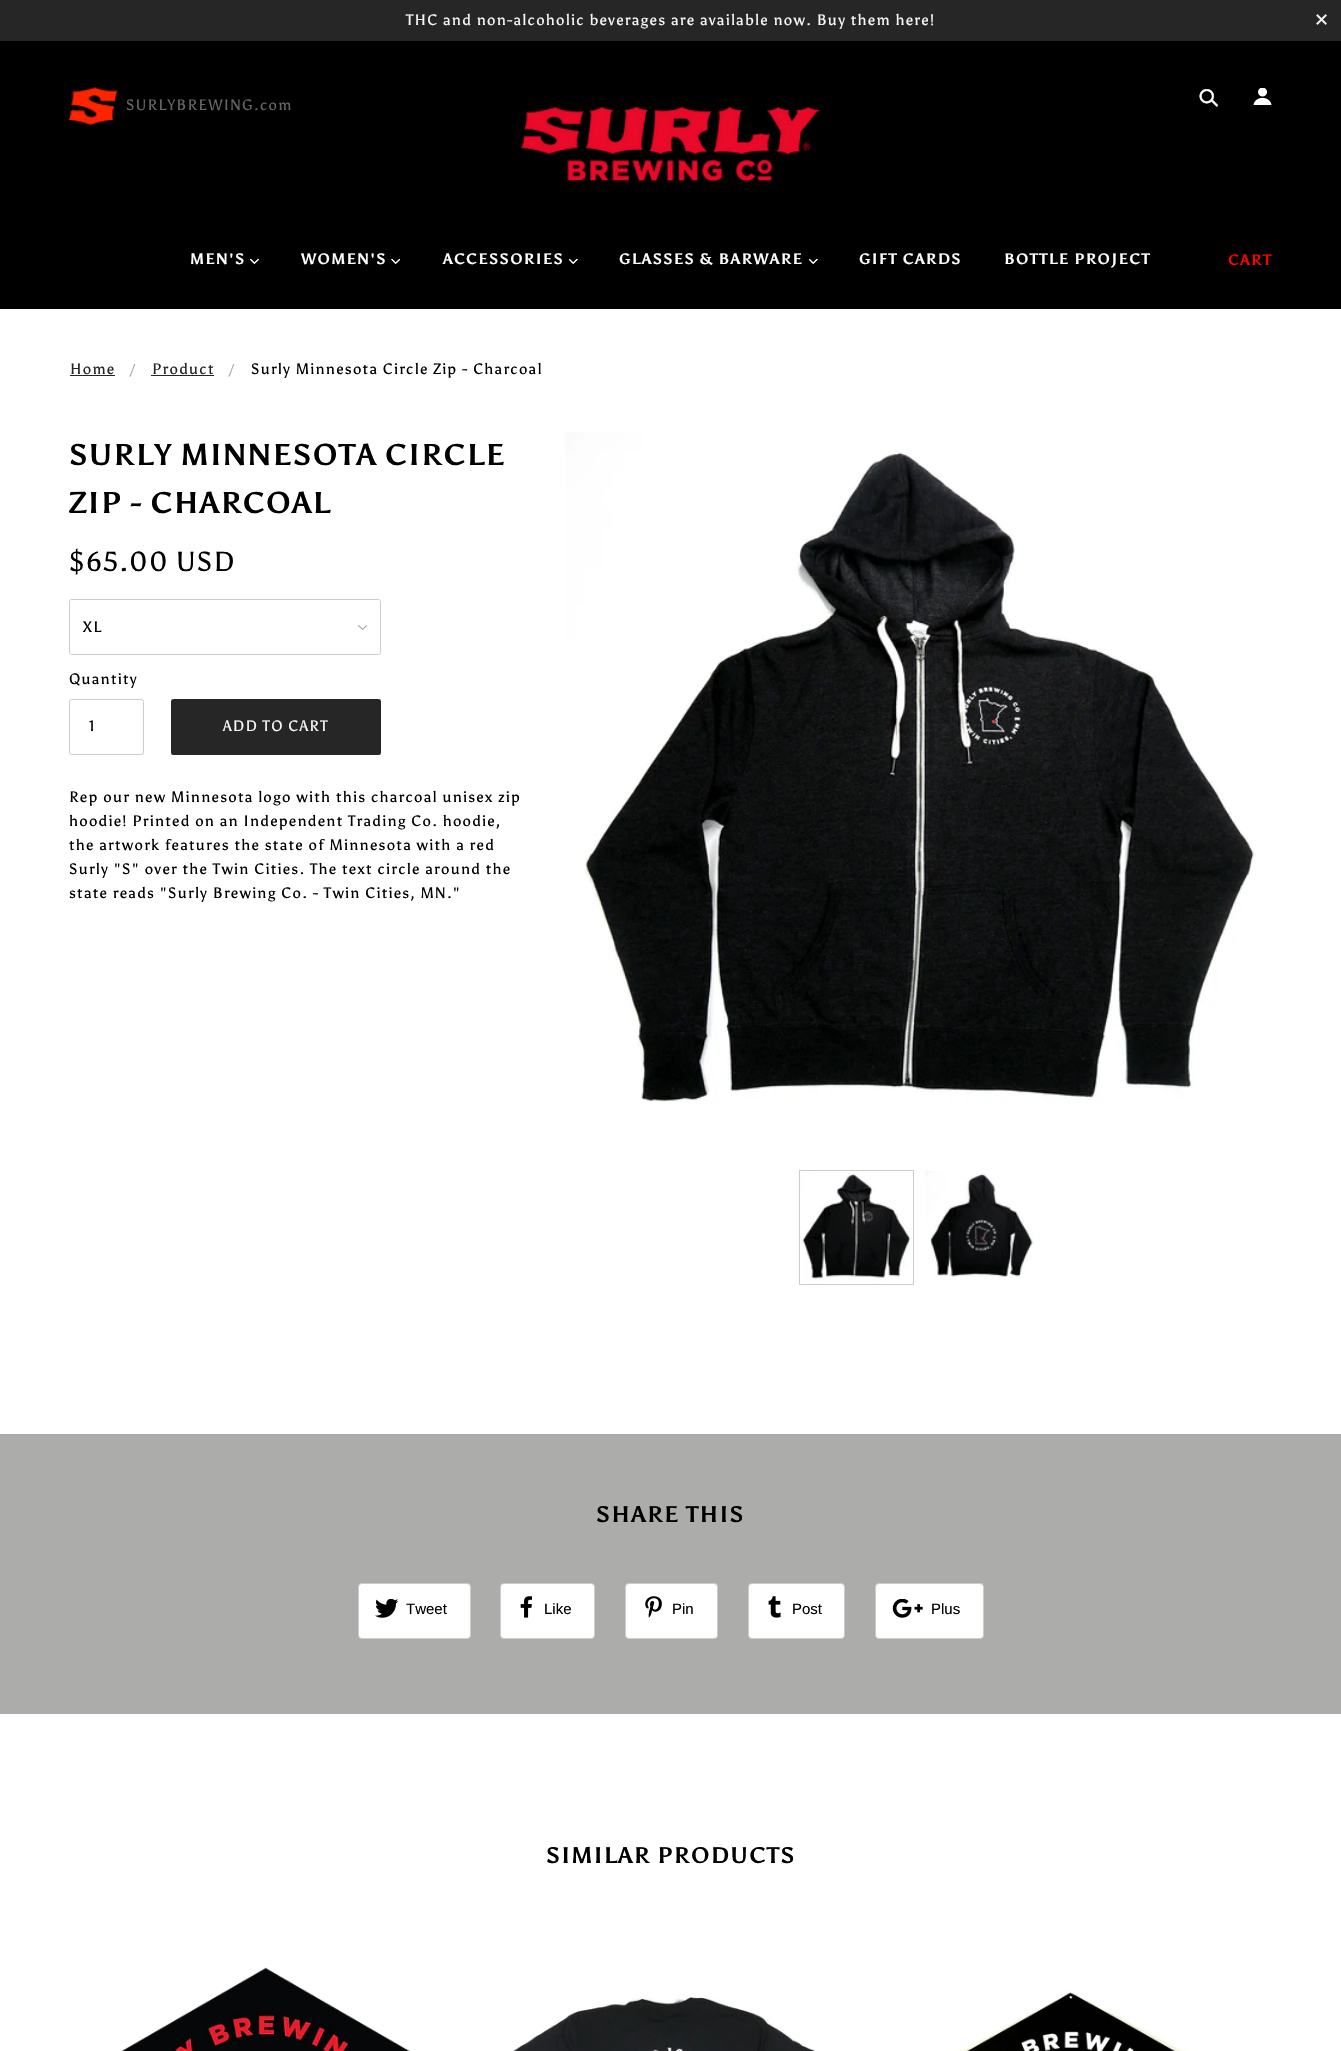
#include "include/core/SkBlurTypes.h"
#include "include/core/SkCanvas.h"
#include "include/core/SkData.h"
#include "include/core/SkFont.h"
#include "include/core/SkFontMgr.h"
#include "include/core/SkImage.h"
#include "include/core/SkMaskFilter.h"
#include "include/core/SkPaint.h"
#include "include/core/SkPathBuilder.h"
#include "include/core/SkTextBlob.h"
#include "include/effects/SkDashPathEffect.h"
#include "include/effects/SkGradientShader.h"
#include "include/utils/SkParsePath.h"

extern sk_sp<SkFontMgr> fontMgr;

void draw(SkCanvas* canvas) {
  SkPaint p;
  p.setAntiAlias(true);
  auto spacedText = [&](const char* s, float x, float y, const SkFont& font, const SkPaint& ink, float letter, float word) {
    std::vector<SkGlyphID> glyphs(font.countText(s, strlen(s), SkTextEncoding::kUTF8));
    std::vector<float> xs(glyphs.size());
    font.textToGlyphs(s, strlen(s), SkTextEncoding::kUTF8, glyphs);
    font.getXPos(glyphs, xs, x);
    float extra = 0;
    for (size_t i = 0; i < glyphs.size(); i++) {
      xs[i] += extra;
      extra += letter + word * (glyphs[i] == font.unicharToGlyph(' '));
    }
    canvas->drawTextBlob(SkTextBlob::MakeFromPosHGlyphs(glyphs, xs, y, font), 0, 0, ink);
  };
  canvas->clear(SK_ColorWHITE);
  p.setColor(SkColorSetRGB(38, 38, 38));
  canvas->drawRect(SkRect::MakeLTRB(0, 0, 1341, 41), p);
  p.setColor(SK_ColorBLACK);
  canvas->drawRect(SkRect::MakeLTRB(0, 41, 1341, 309), p);
  canvas->drawImageRect(SkImages::DeferredFromEncodedData(SkData::MakeFromFileName("images/1.png")), SkRect::MakeLTRB(68, 87, 118, 125), SkSamplingOptions());
  canvas->drawImageRect(SkImages::DeferredFromEncodedData(SkData::MakeFromFileName("images/2.png")), SkRect::MakeLTRB(521, 106, 821, 182), SkSamplingOptions());
  canvas->drawImageRect(SkImages::DeferredFromEncodedData(SkData::MakeFromFileName("images/3.png")), SkRect::MakeLTRB(1199, 89, 1218, 107), SkSamplingOptions());
  canvas->drawImageRect(SkImages::DeferredFromEncodedData(SkData::MakeFromFileName("images/4.png")), SkRect::MakeLTRB(1253, 88, 1272, 105), SkSamplingOptions());
  canvas->drawImageRect(SkImages::DeferredFromEncodedData(SkData::MakeFromFileName("images/5.png")), SkRect::MakeLTRB(250, 259, 259, 264), SkSamplingOptions());
  canvas->drawImageRect(SkImages::DeferredFromEncodedData(SkData::MakeFromFileName("images/6.png")), SkRect::MakeLTRB(391, 259, 400, 264), SkSamplingOptions());
  canvas->drawImageRect(SkImages::DeferredFromEncodedData(SkData::MakeFromFileName("images/7.png")), SkRect::MakeLTRB(569, 259, 578, 264), SkSamplingOptions());
  canvas->drawImageRect(SkImages::DeferredFromEncodedData(SkData::MakeFromFileName("images/7.png")), SkRect::MakeLTRB(809, 259, 818, 264), SkSamplingOptions());
  p.setColor(SkColorSetRGB(37, 37, 37));
  canvas->drawRect(SkRect::MakeLTRB(70, 375, 115, 376), p);
  canvas->drawRect(SkRect::MakeLTRB(151, 375, 214, 376), p);
  canvas->drawImageRect(SkImages::DeferredFromEncodedData(SkData::MakeFromFileName("images/8.png")), SkRect::MakeLTRB(565, 432, 1256, 1103), SkSamplingOptions());
  canvas->drawImageRect(SkImages::DeferredFromEncodedData(SkData::MakeFromFileName("images/9.png")), SkRect::MakeLTRB(800, 1171, 911, 1281), SkSamplingOptions());
  p.setStyle(SkPaint::kStroke_Style);
  p.setStrokeWidth(1);
  p.setColor(SkColorSetRGB(204, 204, 204));
  canvas->drawRect(SkRect::MakeLTRB(799.5f, 1170.5f, 913.5f, 1284.5f), p);
  canvas->drawImageRect(SkImages::DeferredFromEncodedData(SkData::MakeFromFileName("images/10.png")), SkRect::MakeLTRB(925, 1171, 1035, 1277), SkSamplingOptions());
  canvas->drawImageRect(SkImages::DeferredFromEncodedData(SkData::MakeFromFileName("images/11.png")), SkRect::MakeLTRB(358, 625, 367, 630), SkSamplingOptions());
  canvas->drawRoundRect(SkRect::MakeLTRB(69.5f, 599.5f, 380.5f, 654.5f), 2, 2, p);
  canvas->drawRoundRect(SkRect::MakeLTRB(69.5f, 699.5f, 143.5f, 754.5f), 2, 2, p);
  p.setStyle(SkPaint::kFill_Style);
  p.setColor(SkColorSetRGB(38, 38, 38));
  canvas->drawRoundRect(SkRect::MakeLTRB(171, 699, 381, 755), 2.5f, 2.5f, p);
  p.setColor(SkColorSetRGB(172, 172, 171));
  canvas->drawRect(SkRect::MakeLTRB(0, 1434, 1341, 1714), p);
  p.setColor(SK_ColorWHITE);
  canvas->drawRoundRect(SkRect::MakeLTRB(358.5f, 1583.5f, 470.5f, 1638.5f), 3.5f, 3.5f, p);
  p.setStyle(SkPaint::kStroke_Style);
  p.setColor(SkColorSetRGB(204, 204, 204));
  canvas->drawRoundRect(SkRect::MakeLTRB(358.5f, 1583.5f, 470.5f, 1638.5f), 3.5f, 3.5f, p);
  canvas->drawImageRect(SkImages::DeferredFromEncodedData(SkData::MakeFromFileName("images/12.png")), SkRect::MakeLTRB(375, 1599, 399, 1618), SkSamplingOptions());
  p.setStyle(SkPaint::kFill_Style);
  p.setColor(SK_ColorWHITE);
  canvas->drawRoundRect(SkRect::MakeLTRB(500.5f, 1583.5f, 594.5f, 1638.5f), 3.5f, 3.5f, p);
  p.setStyle(SkPaint::kStroke_Style);
  p.setColor(SkColorSetRGB(204, 204, 204));
  canvas->drawRoundRect(SkRect::MakeLTRB(500.5f, 1583.5f, 594.5f, 1638.5f), 3.5f, 3.5f, p);
  canvas->drawImageRect(SkImages::DeferredFromEncodedData(SkData::MakeFromFileName("images/13.png")), SkRect::MakeLTRB(520, 1596, 532, 1618), SkSamplingOptions());
  p.setStyle(SkPaint::kFill_Style);
  p.setColor(SK_ColorWHITE);
  canvas->drawRoundRect(SkRect::MakeLTRB(625.5f, 1583.5f, 717.5f, 1638.5f), 3.5f, 3.5f, p);
  p.setStyle(SkPaint::kStroke_Style);
  p.setColor(SkColorSetRGB(204, 204, 204));
  canvas->drawRoundRect(SkRect::MakeLTRB(625.5f, 1583.5f, 717.5f, 1638.5f), 3.5f, 3.5f, p);
  canvas->drawImageRect(SkImages::DeferredFromEncodedData(SkData::MakeFromFileName("images/14.png")), SkRect::MakeLTRB(645, 1596, 662, 1618), SkSamplingOptions());
  p.setStyle(SkPaint::kFill_Style);
  p.setColor(SK_ColorWHITE);
  canvas->drawRoundRect(SkRect::MakeLTRB(748.5f, 1583.5f, 844.5f, 1638.5f), 3.5f, 3.5f, p);
  p.setStyle(SkPaint::kStroke_Style);
  p.setColor(SkColorSetRGB(204, 204, 204));
  canvas->drawRoundRect(SkRect::MakeLTRB(748.5f, 1583.5f, 844.5f, 1638.5f), 3.5f, 3.5f, p);
  canvas->drawImageRect(SkImages::DeferredFromEncodedData(SkData::MakeFromFileName("images/15.png")), SkRect::MakeLTRB(768, 1596, 781, 1618), SkSamplingOptions());
  p.setStyle(SkPaint::kFill_Style);
  p.setColor(SK_ColorWHITE);
  canvas->drawRoundRect(SkRect::MakeLTRB(875.5f, 1583.5f, 983.5f, 1638.5f), 3.5f, 3.5f, p);
  p.setStyle(SkPaint::kStroke_Style);
  p.setColor(SkColorSetRGB(204, 204, 204));
  canvas->drawRoundRect(SkRect::MakeLTRB(875.5f, 1583.5f, 983.5f, 1638.5f), 3.5f, 3.5f, p);
  canvas->drawImageRect(SkImages::DeferredFromEncodedData(SkData::MakeFromFileName("images/16.png")), SkRect::MakeLTRB(892, 1599, 923, 1618), SkSamplingOptions());
  canvas->drawImageRect(SkImages::DeferredFromEncodedData(SkData::MakeFromFileName("images/17.png")), SkRect::MakeLTRB(121, 1967, 410, 2051), SkSamplingOptions());
  canvas->drawImageRect(SkImages::DeferredFromEncodedData(SkData::MakeFromFileName("images/18.png")), SkRect::MakeLTRB(513, 1997, 816, 2051), SkSamplingOptions());
  canvas->drawImageRect(SkImages::DeferredFromEncodedData(SkData::MakeFromFileName("images/19.png")), SkRect::MakeLTRB(957, 1990, 1189, 2051), SkSamplingOptions());
  SkFont font1(fontMgr->matchFamilyStyle("Asul", SkFontStyle::Normal()), 15);
  font1.setSubpixel(true);
  p.setStyle(SkPaint::kFill_Style);
  p.setColor(SkColorSetRGB(247, 247, 247));
  spacedText("THC and non-alcoholic beverages are available now. Buy them here!", 406, 25, font1, p, 1.25f, 0);
  SkFont font2(fontMgr->matchFamilyStyle("DejaVu Sans", SkFontStyle::Normal()), 18);
  font2.setSubpixel(true);
  canvas->drawString("✕", 1314, 26, font2, p);
  p.setColor(SkColorSetRGB(102, 102, 102));
  spacedText("SURLYBREWING.com", 126, 110, font1, p, 1.25f, 0);
  SkFont font3(fontMgr->matchFamilyStyle("Asul", SkFontStyle::Bold()), 15);
  font3.setSubpixel(true);
  p.setColor(SK_ColorWHITE);
  spacedText("MEN'S", 190, 264, font3, p, 1.25f, 0);
  spacedText("WOMEN'S", 301, 264, font3, p, 1.25f, 0);
  spacedText("ACCESSORIES", 443, 264, font3, p, 1.25f, 0);
  spacedText("GLASSES & BARWARE", 619, 264, font3, p, 1.25f, 0);
  spacedText("GIFT CARDS", 859, 264, font3, p, 1.25f, 0);
  spacedText("BOTTLE PROJECT", 1004, 264, font3, p, 1.25f, 0);
  p.setColor(SkColorSetRGB(255, 0, 0));
  spacedText("CART", 1228, 265, font3, p, 1.25f, 0);
  p.setColor(SkColorSetRGB(37, 37, 37));
  spacedText("Home", 70, 374, font1, p, 1.25f, 0);
  p.setColor(SkColorSetRGB(170, 170, 170));
  spacedText("/", 130, 375, font1, p, 1.25f, 0);
  p.setColor(SkColorSetRGB(37, 37, 37));
  spacedText("Product", 152, 374, font1, p, 1.25f, 0);
  p.setColor(SkColorSetRGB(170, 170, 170));
  spacedText("/", 229, 375, font1, p, 1.25f, 0);
  p.setColor(SK_ColorBLACK);
  spacedText("Surly Minnesota Circle Zip - Charcoal", 251, 374, font1, p, 1.25f, 0);
  SkFont font4(fontMgr->matchFamilyStyle("Asul", SkFontStyle::Bold()), 30);
  font4.setSubpixel(true);
  spacedText("SURLY MINNESOTA CIRCLE", 69, 465, font4, p, 1.25f, 0);
  spacedText("ZIP - CHARCOAL", 69, 513, font4, p, 1.25f, 0);
  SkFont font5(fontMgr->matchFamilyStyle("Asul", SkFontStyle::Normal()), 27.5f);
  font5.setSubpixel(true);
  spacedText("$65.00 USD", 69, 571, font5, p, 1.25f, 0);
  spacedText("XL", 83, 632, font1, p, 1.25f, 0);
  spacedText("Quantity", 69, 684, font1, p, 1.25f, 0);
  spacedText("1", 89, 731, font1, p, 1, 0);
  p.setColor(SkColorSetRGB(247, 247, 247));
  spacedText("ADD TO CART", 223, 731, font1, p, 1.25f, 0);
  p.setColor(SK_ColorBLACK);
  spacedText("Rep our new Minnesota logo with this charcoal unisex zip", 69, 802, font1, p, 1.25f, 0);
  spacedText("hoodie! Printed on an Independent Trading Co. hoodie,", 69, 826, font1, p, 1.25f, 0);
  spacedText("the artwork features the state of Minnesota with a red", 69, 850, font1, p, 1.25f, 0);
  spacedText("Surly \"S\" over the Twin Cities. The text circle around the", 69, 874, font1, p, 1.25f, 0);
  spacedText("state reads \"Surly Brewing Co. - Twin Cities, MN.\"", 69, 898, font1, p, 1.25f, 0);
  SkFont font6(fontMgr->matchFamilyStyle("Asul", SkFontStyle::Bold()), 22.5f);
  font6.setSubpixel(true);
  spacedText("SHARE THIS", 596, 1522, font6, p, 1.25f, 0);
  SkFont font7(fontMgr->matchFamilyStyle("Liberation Sans", SkFontStyle::Normal()), 15);
  font7.setSubpixel(true);
  canvas->drawString("Tweet", 406, 1614, font7, p);
  canvas->drawString("Like", 544, 1614, font7, p);
  canvas->drawString("Pin", 672, 1614, font7, p);
  canvas->drawString("Post", 792, 1614, font7, p);
  canvas->drawString("Plus", 931, 1614, font7, p);
  spacedText("SIMILAR PRODUCTS", 546, 1863, font6, p, 1.25f, 0);
}
